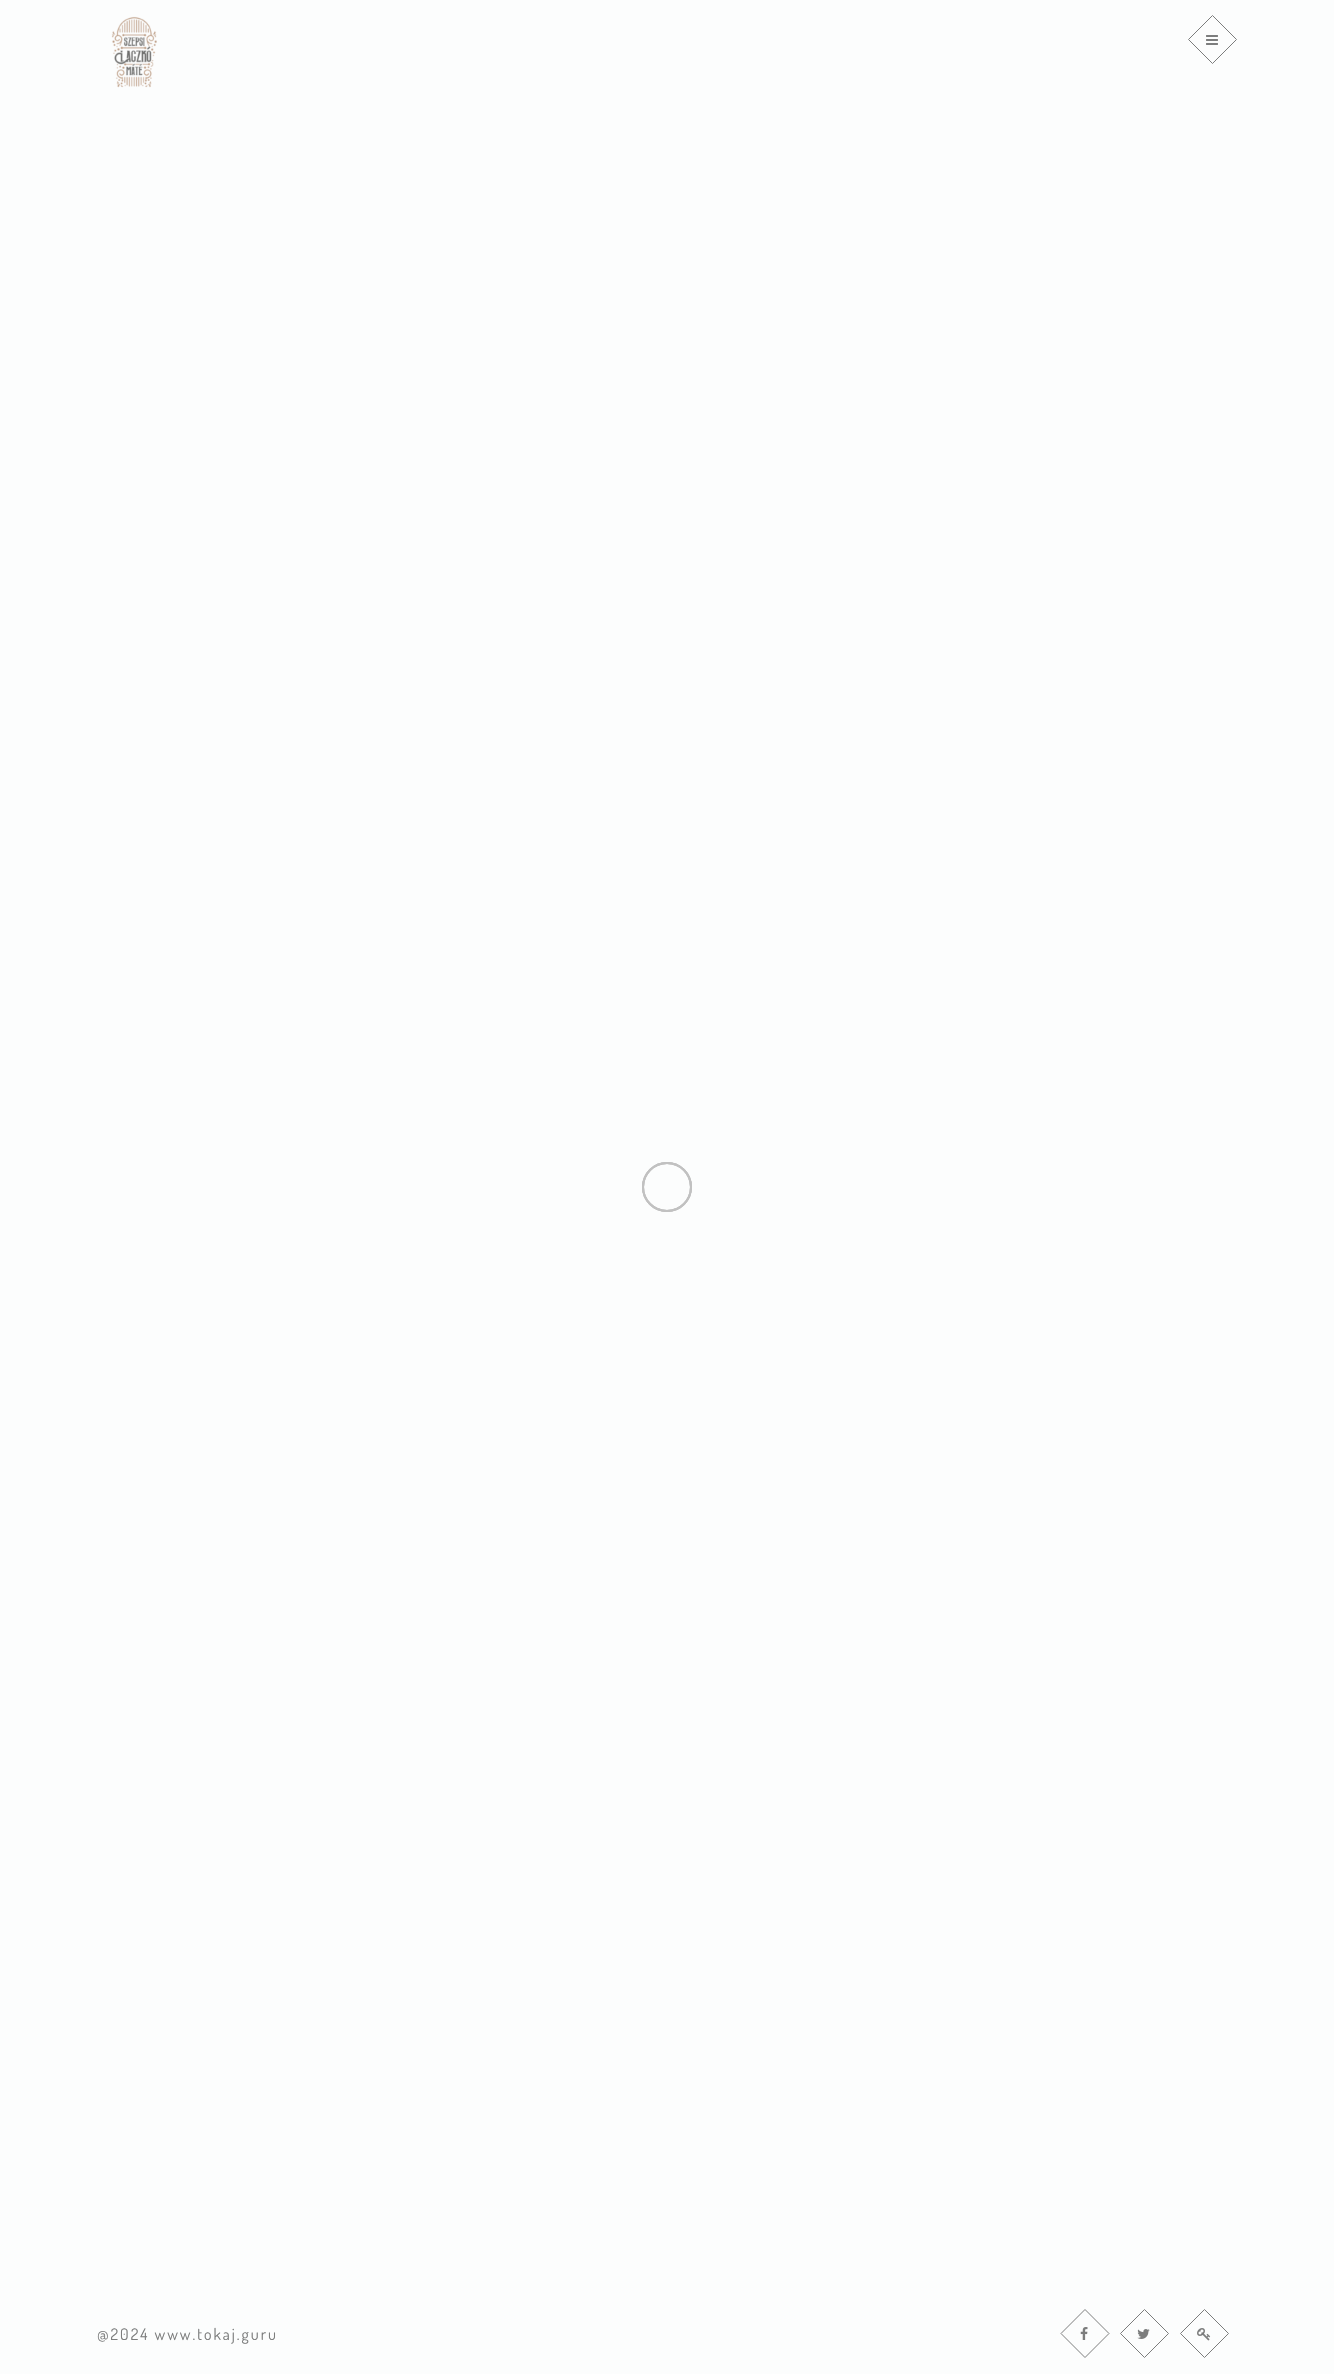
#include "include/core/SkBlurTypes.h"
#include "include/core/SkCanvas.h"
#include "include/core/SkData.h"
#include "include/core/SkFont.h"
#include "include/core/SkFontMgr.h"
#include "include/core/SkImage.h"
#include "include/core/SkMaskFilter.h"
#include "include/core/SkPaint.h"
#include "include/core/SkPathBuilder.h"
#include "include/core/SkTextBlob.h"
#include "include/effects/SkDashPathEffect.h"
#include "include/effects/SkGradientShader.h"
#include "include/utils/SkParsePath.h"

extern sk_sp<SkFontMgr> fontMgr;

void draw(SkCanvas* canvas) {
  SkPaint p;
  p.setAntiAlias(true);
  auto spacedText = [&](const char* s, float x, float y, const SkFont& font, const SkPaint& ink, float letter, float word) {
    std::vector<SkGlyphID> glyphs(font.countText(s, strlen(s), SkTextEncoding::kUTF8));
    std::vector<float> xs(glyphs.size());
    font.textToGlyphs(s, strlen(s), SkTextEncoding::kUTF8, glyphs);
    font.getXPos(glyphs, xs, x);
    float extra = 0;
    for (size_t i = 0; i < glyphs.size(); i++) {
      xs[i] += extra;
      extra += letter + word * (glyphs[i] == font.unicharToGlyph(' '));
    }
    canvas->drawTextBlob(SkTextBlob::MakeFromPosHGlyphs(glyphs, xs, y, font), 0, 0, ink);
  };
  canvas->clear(SkColorSetRGB(252, 253, 253));
  canvas->drawImageRect(SkImages::DeferredFromEncodedData(SkData::MakeFromFileName("images/1.png")), SkRect::MakeLTRB(111, 16, 157, 88), SkSamplingOptions());
  p.setStyle(SkPaint::kStroke_Style);
  p.setStrokeWidth(1);
  p.setColor(SkColorSetRGB(124, 125, 125));
  canvas->drawPath(SkPathBuilder().moveTo(1212.5f, 15.5f).lineTo(1236.5f, 39.5f).lineTo(1212.5f, 63.5f).lineTo(1188.5f, 39.5f).close().detach(), p);
  canvas->drawImageRect(SkImages::DeferredFromEncodedData(SkData::MakeFromFileName("images/2.png")), SkRect::MakeLTRB(1206, 35, 1218, 45), SkSamplingOptions());
  p.setStrokeWidth(2);
  p.setColor(SkColorSetRGB(193, 193, 193));
  canvas->drawCircle(667, 1187, 24, p);
  canvas->drawCircle(667, 1187, 24, p);
  canvas->drawCircle(667, 1187, 24, p);
  p.setStrokeWidth(1);
  p.setColor(SkColorSetRGB(124, 125, 125));
  canvas->drawPath(SkPathBuilder().moveTo(1085, 2309.5f).lineTo(1109, 2333.5f).lineTo(1085, 2357.5f).lineTo(1061, 2333.5f).close().detach(), p);
  canvas->drawImageRect(SkImages::DeferredFromEncodedData(SkData::MakeFromFileName("images/3.png")), SkRect::MakeLTRB(1080, 2327, 1088, 2340), SkSamplingOptions());
  canvas->drawPath(SkPathBuilder().moveTo(1144.5f, 2309.5f).lineTo(1168.5f, 2333.5f).lineTo(1144.5f, 2357.5f).lineTo(1120.5f, 2333.5f).close().detach(), p);
  canvas->drawImageRect(SkImages::DeferredFromEncodedData(SkData::MakeFromFileName("images/4.png")), SkRect::MakeLTRB(1137, 2329, 1150, 2339), SkSamplingOptions());
  canvas->drawPath(SkPathBuilder().moveTo(1204.5f, 2309.5f).lineTo(1228.5f, 2333.5f).lineTo(1204.5f, 2357.5f).lineTo(1180.5f, 2333.5f).close().detach(), p);
  canvas->drawImageRect(SkImages::DeferredFromEncodedData(SkData::MakeFromFileName("images/5.png")), SkRect::MakeLTRB(1197, 2328, 1211, 2341), SkSamplingOptions());
  SkFont font1(fontMgr->matchFamilyStyle("Dosis", SkFontStyle::Normal()), 16);
  font1.setSubpixel(true);
  p.setStyle(SkPaint::kFill_Style);
  spacedText("@2024 www.tokaj.guru", 97, 2340, font1, p, 2, 0);
}
